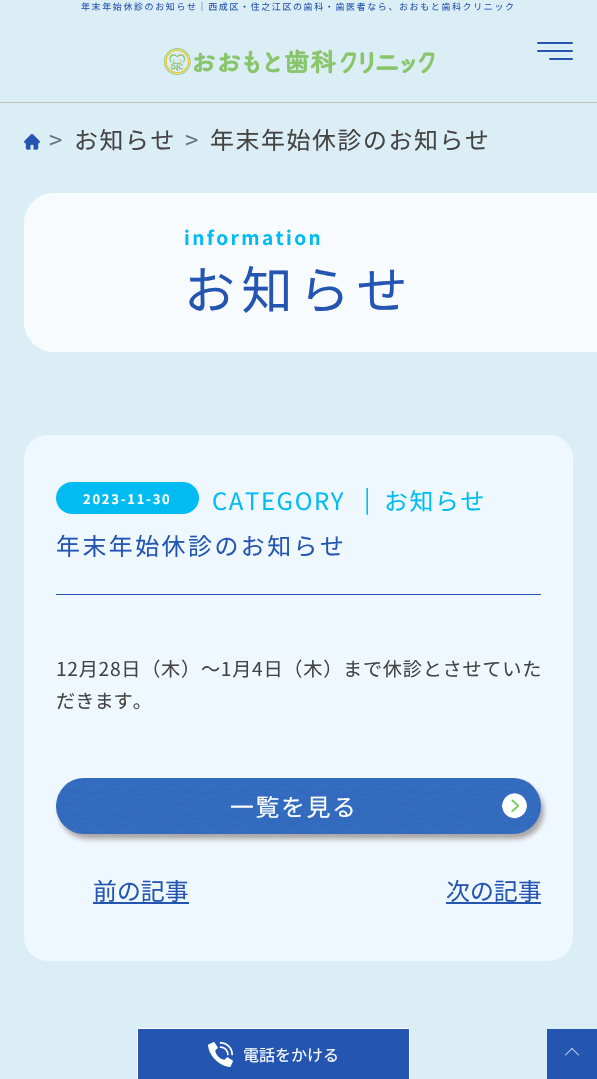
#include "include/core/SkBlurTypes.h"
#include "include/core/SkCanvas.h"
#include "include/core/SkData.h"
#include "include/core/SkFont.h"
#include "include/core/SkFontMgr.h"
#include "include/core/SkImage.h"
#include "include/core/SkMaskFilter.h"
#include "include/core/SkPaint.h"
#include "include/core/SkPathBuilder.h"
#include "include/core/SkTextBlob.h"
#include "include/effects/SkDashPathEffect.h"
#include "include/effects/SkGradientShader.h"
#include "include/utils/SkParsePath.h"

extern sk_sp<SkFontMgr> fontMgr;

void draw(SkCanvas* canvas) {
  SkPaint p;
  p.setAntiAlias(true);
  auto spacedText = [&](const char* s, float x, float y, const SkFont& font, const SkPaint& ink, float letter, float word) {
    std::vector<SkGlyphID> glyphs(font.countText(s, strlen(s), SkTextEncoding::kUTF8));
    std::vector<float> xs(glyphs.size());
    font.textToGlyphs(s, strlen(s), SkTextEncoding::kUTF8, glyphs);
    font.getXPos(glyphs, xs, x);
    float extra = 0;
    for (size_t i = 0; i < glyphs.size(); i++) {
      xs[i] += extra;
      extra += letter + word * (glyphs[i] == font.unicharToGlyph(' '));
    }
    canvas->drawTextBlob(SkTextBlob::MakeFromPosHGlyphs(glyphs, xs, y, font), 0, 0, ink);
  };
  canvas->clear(SkColorSetRGB(219, 237, 245));
  p.setColor(SkColorSetRGB(198, 195, 189));
  canvas->drawRect(SkRect::MakeLTRB(0, 102, 597, 103), p);
  canvas->drawImageRect(SkImages::DeferredFromEncodedData(SkData::MakeFromFileName("images/1.png")), SkRect::MakeLTRB(164, 48, 435, 75), SkSamplingOptions());
  p.setColor(SkColorSetRGB(35, 85, 177));
  canvas->drawRoundRect(SkRect::MakeLTRB(537, 42, 573, 44), 1, 1, p);
  canvas->drawRoundRect(SkRect::MakeLTRB(537, 50, 573, 52), 1, 1, p);
  canvas->drawRoundRect(SkRect::MakeLTRB(549, 58, 573, 60), 1, 1, p);
  canvas->drawImageRect(SkImages::DeferredFromEncodedData(SkData::MakeFromFileName("images/2.png")), SkRect::MakeLTRB(24, 134, 40, 150), SkSamplingOptions());
  p.setColor(SkColorSetRGB(248, 251, 253));
  canvas->drawPath(SkPathBuilder().moveTo(54, 193).lineTo(597, 193).lineTo(597, 352).lineTo(54, 352).cubicTo(37.5f, 352, 24, 338.5f, 24, 322).lineTo(24, 223).cubicTo(24, 206.5f, 37.5f, 193, 54, 193).close().detach(), p);
  p.setColor(SkColorSetRGB(240, 248, 255));
  canvas->drawRoundRect(SkRect::MakeLTRB(24, 435, 573, 961), 24, 24, p);
  p.setColor(SkColorSetRGB(35, 85, 177));
  canvas->drawRect(SkRect::MakeLTRB(56, 594, 541, 595), p);
  p.setColor(SkColorSetRGB(0, 188, 242));
  canvas->drawRoundRect(SkRect::MakeLTRB(56, 482, 199, 514), 16, 16, p);
  p.setColor(SkColorSetARGB(102, 63, 41, 29));
  p.setMaskFilter(SkMaskFilter::MakeBlur(kNormal_SkBlurStyle, 2.5f));
  canvas->drawRoundRect(SkRect::MakeLTRB(59, 783, 544, 839), 28, 28, p);
  p.setMaskFilter(nullptr);
  canvas->drawImageRect(SkImages::DeferredFromEncodedData(SkData::MakeFromFileName("images/3.png")), SkRect::MakeLTRB(56, 778, 541, 834), SkSamplingOptions());
  canvas->drawImageRect(SkImages::DeferredFromEncodedData(SkData::MakeFromFileName("images/4.png")), SkRect::MakeLTRB(502, 793, 527, 819), SkSamplingOptions());
  p.setColor(SkColorSetRGB(35, 85, 177));
  canvas->drawRect(SkRect::MakeLTRB(93, 902, 189, 904), p);
  canvas->drawRect(SkRect::MakeLTRB(446, 902, 541, 904), p);
  p.setColor(SK_ColorWHITE);
  canvas->drawRect(SkRect::MakeLTRB(137, 1028, 410, 1029), p);
  canvas->drawRect(SkRect::MakeLTRB(409, 1028, 410, 1079), p);
  canvas->drawRect(SkRect::MakeLTRB(137, 1028, 138, 1079), p);
  p.setColor(SkColorSetRGB(35, 85, 177));
  canvas->drawRect(SkRect::MakeLTRB(138, 1029, 409, 1079), p);
  canvas->drawImageRect(SkImages::DeferredFromEncodedData(SkData::MakeFromFileName("images/5.png")), SkRect::MakeLTRB(208, 1042, 233, 1067), SkSamplingOptions());
  canvas->drawRect(SkRect::MakeLTRB(547, 1029, 597, 1079), p);
  p.setColor(SK_ColorWHITE);
  canvas->drawPath(SkPathBuilder().moveTo(565, 1055).lineTo(572, 1048).lineTo(572.5f, 1048.5f).lineTo(565.5f, 1055.5f).close().detach(), p);
  canvas->drawPath(SkPathBuilder().moveTo(571.5f, 1048.5f).lineTo(572, 1048).lineTo(579, 1055).lineTo(578.5f, 1055.5f).close().detach(), p);
  SkFont font1(fontMgr->matchFamilyStyle("Noto Sans JP", SkFontStyle::Normal()), 9);
  font1.setSubpixel(true);
  p.setColor(SkColorSetRGB(35, 85, 177));
  spacedText("年末年始休診のお知らせ｜西成区・住之江区の歯科・歯医者なら、おおもと歯科クリニック", 81, 10, font1, p, 1.6f, 0);
  SkFont font2(fontMgr->matchFamilyStyle("Noto Sans JP", SkFontStyle::Normal()), 23.9f);
  font2.setSubpixel(true);
  p.setColor(SkColorSetRGB(108, 117, 125));
  spacedText(">", 49, 149, font2, p, 1.6f, 0);
  p.setColor(SkColorSetRGB(69, 68, 67));
  spacedText("お知らせ", 74, 149, font2, p, 1.6f, 0);
  p.setColor(SkColorSetRGB(108, 117, 125));
  spacedText(">", 185, 149, font2, p, 1.6f, 0);
  p.setColor(SkColorSetRGB(69, 68, 67));
  spacedText("年末年始休診のお知らせ", 210, 149, font2, p, 1.6f, 0);
  SkFont font3(fontMgr->matchFamilyStyle("Noto Sans JP", SkFontStyle::Bold()), 19);
  font3.setSubpixel(true);
  p.setColor(SkColorSetRGB(0, 188, 242));
  spacedText("information", 184, 245, font3, p, 2.4f, 0);
  SkFont font4(fontMgr->matchFamilyStyle("Noto Sans JP", SkFontStyle::Normal()), 51);
  font4.setSubpixel(true);
  p.setColor(SkColorSetRGB(35, 85, 177));
  spacedText("お知らせ", 184, 309, font4, p, 6.5f, 0);
  SkFont font5(fontMgr->matchFamilyStyle("Noto Sans JP", SkFontStyle::Bold()), 13);
  font5.setSubpixel(true);
  p.setColor(SK_ColorWHITE);
  spacedText("2023-11-30", 83, 504, font5, p, 1.75f, 0);
  p.setColor(SkColorSetRGB(0, 188, 242));
  spacedText("CATEGORY", 212, 510, font2, p, 1.6f, 0);
  spacedText("|", 364, 508, font2, p, 1.6f, 0);
  spacedText("お知らせ", 384, 510, font2, p, 1.6f, 0);
  p.setColor(SkColorSetRGB(35, 85, 177));
  spacedText("年末年始休診のお知らせ", 56, 555, font2, p, 2.5f, 0);
  SkFont font6(fontMgr->matchFamilyStyle("Noto Sans JP", SkFontStyle::Normal()), 19.2f);
  font6.setSubpixel(true);
  p.setColor(SkColorSetRGB(69, 68, 67));
  spacedText("12月28日（木）～1月4日（木）まで休診とさせていた", 56, 676, font6, p, 0.7f, 0);
  canvas->drawString("だきます。", 56, 708, font6, p);
  p.setColor(SK_ColorWHITE);
  spacedText("一覧を見る", 230, 816, font2, p, 1.6f, 0);
  p.setColor(SkColorSetRGB(35, 85, 177));
  canvas->drawString("前の記事", 93, 900, font2, p);
  canvas->drawString("次の記事", 446, 900, font2, p);
  SkFont font7(fontMgr->matchFamilyStyle("Noto Sans JP", SkFontStyle::Normal()), 16);
  font7.setSubpixel(true);
  p.setColor(SK_ColorWHITE);
  canvas->drawString("電話をかける", 243, 1061, font7, p);
}
